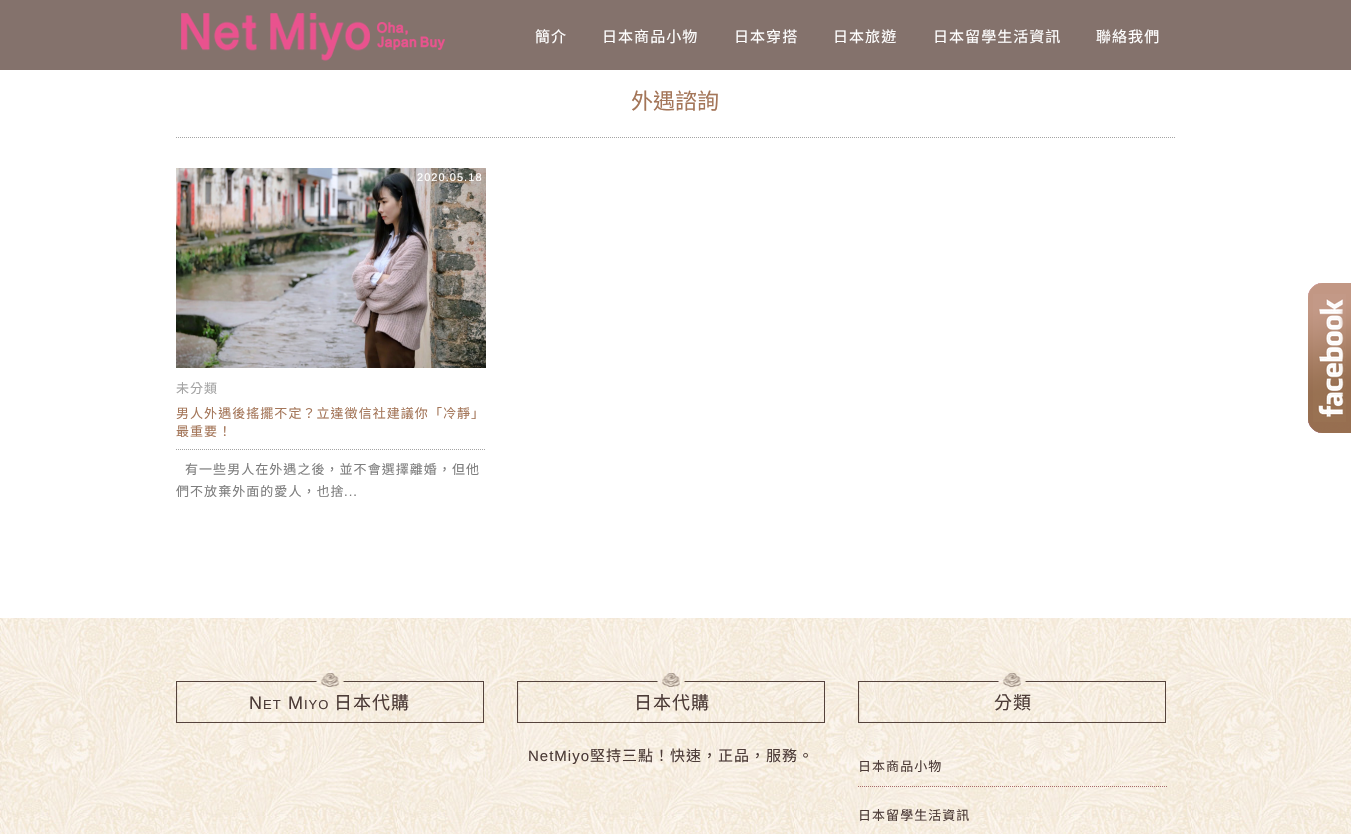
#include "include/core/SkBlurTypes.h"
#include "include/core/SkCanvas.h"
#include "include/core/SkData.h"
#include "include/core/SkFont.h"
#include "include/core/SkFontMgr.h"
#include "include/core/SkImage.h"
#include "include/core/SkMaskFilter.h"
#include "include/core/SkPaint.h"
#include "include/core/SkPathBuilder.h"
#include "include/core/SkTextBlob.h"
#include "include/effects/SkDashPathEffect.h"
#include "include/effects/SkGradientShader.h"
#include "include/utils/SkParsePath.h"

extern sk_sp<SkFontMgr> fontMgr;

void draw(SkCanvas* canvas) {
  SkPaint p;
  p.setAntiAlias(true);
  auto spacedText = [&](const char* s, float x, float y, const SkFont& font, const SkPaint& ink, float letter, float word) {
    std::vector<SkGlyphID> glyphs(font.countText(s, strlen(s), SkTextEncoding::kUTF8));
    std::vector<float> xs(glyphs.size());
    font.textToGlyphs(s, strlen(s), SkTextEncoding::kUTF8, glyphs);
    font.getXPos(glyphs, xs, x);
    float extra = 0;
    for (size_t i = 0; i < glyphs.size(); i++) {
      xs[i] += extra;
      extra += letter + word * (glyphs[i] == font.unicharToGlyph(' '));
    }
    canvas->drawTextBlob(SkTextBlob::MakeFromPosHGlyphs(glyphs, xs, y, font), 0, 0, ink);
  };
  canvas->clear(SK_ColorWHITE);
  p.setColor(SkColorSetRGB(132, 114, 108));
  canvas->drawRect(SkRect::MakeLTRB(0, 0, 1351, 70), p);
  canvas->drawImageRect(SkImages::DeferredFromEncodedData(SkData::MakeFromFileName("images/1.png")), SkRect::MakeLTRB(181, 13, 445, 61), SkSamplingOptions());
  p.setStyle(SkPaint::kStroke_Style);
  p.setStrokeWidth(1);
  p.setColor(SkColorSetRGB(164, 164, 164));
  p.setPathEffect(SkDashPathEffect::Make({{1, 1}}, 0));
  canvas->drawPath(SkPathBuilder().moveTo(176, 137.5f).lineTo(1176, 137.5f).detach(), p);
  p.setPathEffect(nullptr);
  canvas->drawImageRect(SkImages::DeferredFromEncodedData(SkData::MakeFromFileName("images/2.png")), SkRect::MakeLTRB(176, 168, 486, 368), SkSamplingOptions());
  p.setPathEffect(SkDashPathEffect::Make({{1, 1}}, 0));
  canvas->drawPath(SkPathBuilder().moveTo(176, 449.5f).lineTo(486, 449.5f).detach(), p);
  p.setPathEffect(nullptr);
  canvas->drawImageRect(SkImages::DeferredFromEncodedData(SkData::MakeFromFileName("images/3.png")), SkRect::MakeLTRB(0, 618, 1351, 834), SkSamplingOptions());
  canvas->drawImageRect(SkImages::DeferredFromEncodedData(SkData::MakeFromFileName("images/4.png")), SkRect::MakeLTRB(176, 673, 484, 723), SkSamplingOptions());
  canvas->drawImageRect(SkImages::DeferredFromEncodedData(SkData::MakeFromFileName("images/5.png")), SkRect::MakeLTRB(517, 673, 825, 723), SkSamplingOptions());
  canvas->drawImageRect(SkImages::DeferredFromEncodedData(SkData::MakeFromFileName("images/6.png")), SkRect::MakeLTRB(858, 673, 1166, 723), SkSamplingOptions());
  p.setColor(SkColorSetRGB(167, 109, 107));
  p.setPathEffect(SkDashPathEffect::Make({{1, 1}}, 0));
  canvas->drawPath(SkPathBuilder().moveTo(858, 786.5f).lineTo(1168, 786.5f).detach(), p);
  p.setPathEffect(nullptr);
  canvas->drawImageRect(SkImages::DeferredFromEncodedData(SkData::MakeFromFileName("images/7.png")), SkRect::MakeLTRB(1308, 283, 1351, 433), SkSamplingOptions());
  SkFont font1(fontMgr->matchFamilyStyle("Noto Sans CJK TC", SkFontStyle::Normal()), 15);
  font1.setSubpixel(true);
  p.setStyle(SkPaint::kFill_Style);
  p.setColor(SK_ColorWHITE);
  spacedText("簡介", 535, 42, font1, p, 1.05f, 0);
  spacedText("日本商品小物", 602, 42, font1, p, 1.05f, 0);
  spacedText("日本穿搭", 734, 42, font1, p, 1.05f, 0);
  spacedText("日本旅遊", 833, 42, font1, p, 1.05f, 0);
  spacedText("日本留學生活資訊", 933, 42, font1, p, 1.05f, 0);
  spacedText("聯絡我們", 1096, 42, font1, p, 1.05f, 0);
  SkFont font2(fontMgr->matchFamilyStyle("Noto Sans CJK TC", SkFontStyle::Normal()), 22);
  font2.setSubpixel(true);
  p.setColor(SkColorSetRGB(164, 118, 89));
  canvas->drawString("外遇諮詢", 631, 109, font2, p);
  SkFont font3(fontMgr->matchFamilyStyle("Liberation Sans", SkFontStyle::Normal()), 11);
  font3.setSubpixel(true);
  p.setColor(SK_ColorWHITE);
  spacedText("2020.05.18", 417, 181, font3, p, 1.05f, 0);
  SkFont font4(fontMgr->matchFamilyStyle("Noto Sans CJK TC", SkFontStyle::Normal()), 13);
  font4.setSubpixel(true);
  p.setColor(SkColorSetRGB(164, 118, 89));
  spacedText("男人外遇後搖擺不定？立達徵信社建議你「冷靜」", 176, 418, font4, p, 1.05f, 0);
  spacedText("最重要！", 176, 436, font4, p, 1.05f, 0);
  p.setColor(SkColorSetRGB(164, 164, 164));
  spacedText("未分類", 176, 393, font4, p, 1.05f, 0);
  p.setColor(SkColorSetRGB(126, 126, 126));
  spacedText("有一些男人在外遇之後，並不會選擇離婚，但他", 185, 474, font4, p, 1.05f, 0);
  spacedText("們不放棄外面的愛人，也捨", 176, 496, font4, p, 1.05f, 0);
  SkFont font5(fontMgr->matchFamilyStyle("Liberation Sans", SkFontStyle::Normal()), 13);
  font5.setSubpixel(true);
  spacedText("...", 344, 496, font5, p, 1.05f, 0);
  SkFont font6(fontMgr->matchFamilyStyle("Liberation Sans", SkFontStyle::Normal()), 18);
  font6.setSubpixel(true);
  p.setColor(SkColorSetRGB(76, 59, 55));
  spacedText("N", 249, 709, font6, p, 1, 0);
  spacedText("ET", 263, 709, font5, p, 1, 0);
  spacedText("M", 288, 709, font6, p, 1, 0);
  spacedText("IYO", 304, 709, font5, p, 1, 0);
  SkFont font7(fontMgr->matchFamilyStyle("Noto Sans CJK TC", SkFontStyle::Normal()), 18);
  font7.setSubpixel(true);
  spacedText("日本代購", 334, 709, font7, p, 1, 0);
  spacedText("日本代購", 634, 709, font7, p, 1, 0);
  SkFont font8(fontMgr->matchFamilyStyle("Liberation Sans", SkFontStyle::Normal()), 15);
  font8.setSubpixel(true);
  spacedText("NetMiyo", 528, 761, font8, p, 1, 0);
  spacedText("堅持三點！快速，正品，服務。", 590, 761, font1, p, 1, 0);
  spacedText("分類", 994, 709, font7, p, 1, 0);
  spacedText("日本商品小物", 858, 771, font4, p, 1.05f, 0);
  spacedText("日本留學生活資訊", 858, 820, font4, p, 1.05f, 0);
}
